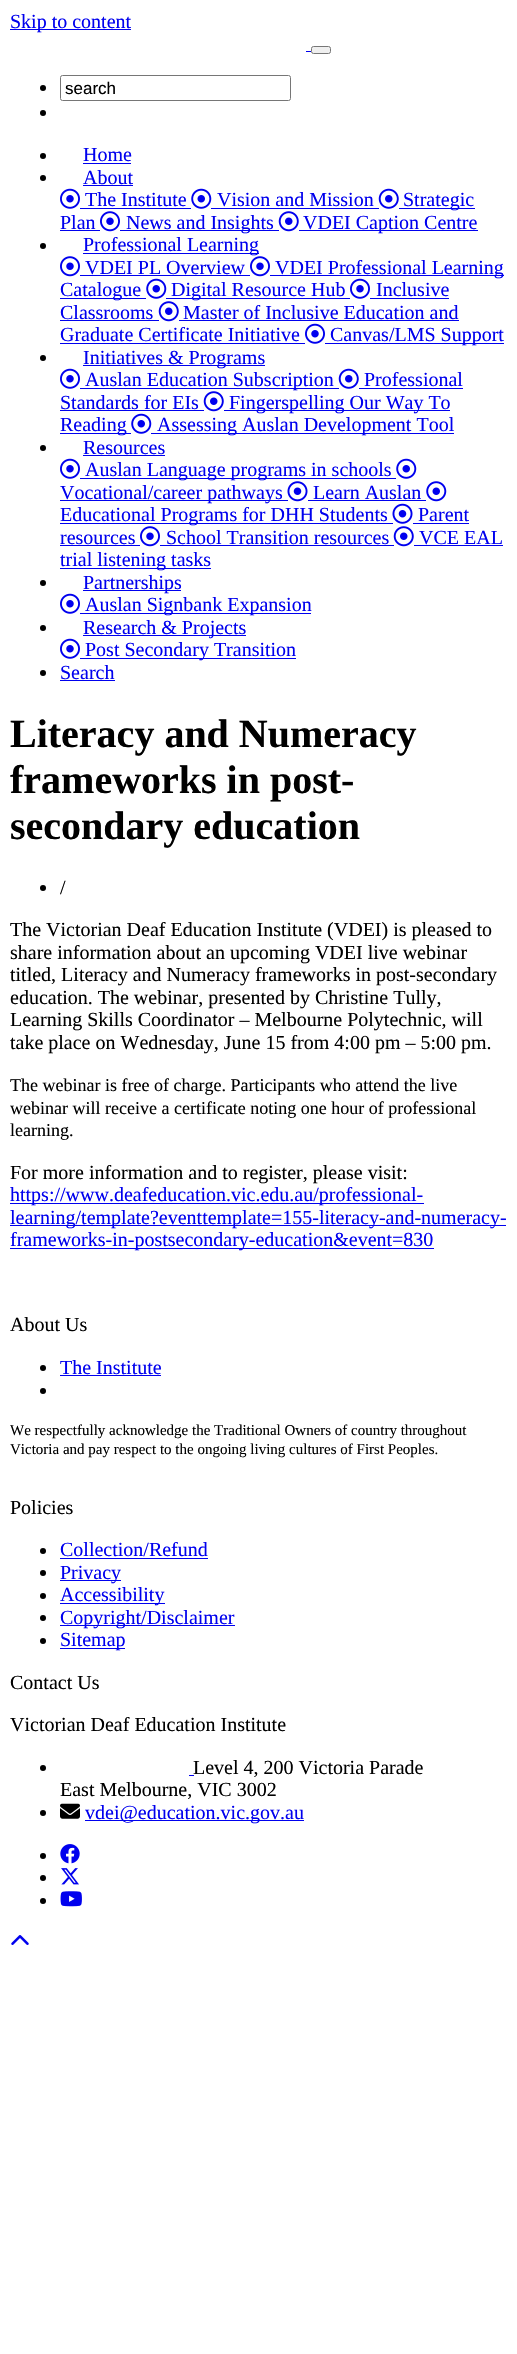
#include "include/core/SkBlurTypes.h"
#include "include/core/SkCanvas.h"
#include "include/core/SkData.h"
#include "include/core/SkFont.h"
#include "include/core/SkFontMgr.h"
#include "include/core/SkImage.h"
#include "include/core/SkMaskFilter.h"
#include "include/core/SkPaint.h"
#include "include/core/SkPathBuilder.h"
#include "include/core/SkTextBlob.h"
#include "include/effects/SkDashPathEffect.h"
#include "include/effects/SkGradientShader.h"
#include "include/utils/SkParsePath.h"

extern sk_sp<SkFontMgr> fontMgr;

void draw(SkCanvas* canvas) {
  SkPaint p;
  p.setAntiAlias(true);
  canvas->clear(SK_ColorWHITE);
  p.setColor(SkColorSetRGB(0, 0, 238));
  canvas->drawRect(SkRect::MakeLTRB(10, 29, 131, 30), p);
  canvas->drawRect(SkRect::MakeLTRB(306, 51, 311, 52), p);
  p.setColor(SkColorSetRGB(239, 239, 239));
  canvas->drawRoundRect(SkRect::MakeLTRB(311.5f, 46.5f, 330.5f, 53.5f), 2, 2, p);
  p.setStyle(SkPaint::kStroke_Style);
  p.setStrokeWidth(1);
  p.setColor(SkColorSetRGB(118, 118, 118));
  canvas->drawRoundRect(SkRect::MakeLTRB(311.5f, 46.5f, 330.5f, 53.5f), 2, 2, p);
  p.setStyle(SkPaint::kFill_Style);
  p.setColor(SK_ColorBLACK);
  canvas->drawCircle(43, 88, 3, p);
  p.setStyle(SkPaint::kStroke_Style);
  p.setColor(SkColorSetRGB(118, 118, 118));
  canvas->drawRoundRect(SkRect::MakeLTRB(60.5f, 75.5f, 290.5f, 100.5f), 2, 2, p);
  p.setStyle(SkPaint::kFill_Style);
  p.setColor(SK_ColorBLACK);
  canvas->drawCircle(43, 113, 3, p);
  canvas->drawCircle(43, 156, 3, p);
  p.setColor(SkColorSetRGB(0, 0, 238));
  canvas->drawRect(SkRect::MakeLTRB(83, 163, 131, 164), p);
  p.setColor(SK_ColorBLACK);
  canvas->drawCircle(43, 178, 3, p);
  p.setColor(SkColorSetRGB(0, 0, 238));
  canvas->drawRect(SkRect::MakeLTRB(83, 185, 133, 186), p);
  canvas->drawImageRect(SkImages::DeferredFromEncodedData(SkData::MakeFromFileName("images/3.png")), SkRect::MakeLTRB(191, 188, 212, 209), SkSamplingOptions());
  canvas->drawRect(SkRect::MakeLTRB(211, 208, 379, 209), p);
  canvas->drawImageRect(SkImages::DeferredFromEncodedData(SkData::MakeFromFileName("images/1.png")), SkRect::MakeLTRB(378, 188, 399, 209), SkSamplingOptions());
  canvas->drawRect(SkRect::MakeLTRB(399, 208, 475, 209), p);
  canvas->drawRect(SkRect::MakeLTRB(60, 230, 100, 231), p);
  canvas->drawImageRect(SkImages::DeferredFromEncodedData(SkData::MakeFromFileName("images/2.png")), SkRect::MakeLTRB(60, 188, 80, 209), SkSamplingOptions());
  canvas->drawRect(SkRect::MakeLTRB(80, 208, 191, 209), p);
  canvas->drawImageRect(SkImages::DeferredFromEncodedData(SkData::MakeFromFileName("images/4.png")), SkRect::MakeLTRB(100, 211, 120, 232), SkSamplingOptions());
  canvas->drawRect(SkRect::MakeLTRB(120, 230, 279, 231), p);
  canvas->drawImageRect(SkImages::DeferredFromEncodedData(SkData::MakeFromFileName("images/5.png")), SkRect::MakeLTRB(278, 211, 299, 232), SkSamplingOptions());
  canvas->drawRect(SkRect::MakeLTRB(299, 230, 478, 231), p);
  p.setColor(SK_ColorBLACK);
  canvas->drawCircle(43, 246, 3, p);
  p.setColor(SkColorSetRGB(0, 0, 238));
  canvas->drawRect(SkRect::MakeLTRB(83, 253, 259, 254), p);
  canvas->drawImageRect(SkImages::DeferredFromEncodedData(SkData::MakeFromFileName("images/4.png")), SkRect::MakeLTRB(250, 256, 270, 277), SkSamplingOptions());
  canvas->drawRect(SkRect::MakeLTRB(270, 275, 504, 276), p);
  canvas->drawRect(SkRect::MakeLTRB(60, 298, 146, 299), p);
  canvas->drawImageRect(SkImages::DeferredFromEncodedData(SkData::MakeFromFileName("images/4.png")), SkRect::MakeLTRB(60, 256, 80, 277), SkSamplingOptions());
  canvas->drawRect(SkRect::MakeLTRB(80, 275, 250, 276), p);
  canvas->drawRect(SkRect::MakeLTRB(370, 298, 449, 299), p);
  canvas->drawRect(SkRect::MakeLTRB(60, 320, 159, 321), p);
  canvas->drawImageRect(SkImages::DeferredFromEncodedData(SkData::MakeFromFileName("images/3.png")), SkRect::MakeLTRB(146, 278, 167, 299), SkSamplingOptions());
  canvas->drawRect(SkRect::MakeLTRB(166, 298, 350, 299), p);
  canvas->drawImageRect(SkImages::DeferredFromEncodedData(SkData::MakeFromFileName("images/5.png")), SkRect::MakeLTRB(158, 301, 179, 322), SkSamplingOptions());
  canvas->drawRect(SkRect::MakeLTRB(179, 320, 459, 321), p);
  canvas->drawRect(SkRect::MakeLTRB(60, 343, 305, 344), p);
  canvas->drawImageRect(SkImages::DeferredFromEncodedData(SkData::MakeFromFileName("images/2.png")), SkRect::MakeLTRB(305, 323, 325, 344), SkSamplingOptions());
  canvas->drawRect(SkRect::MakeLTRB(325, 343, 504, 344), p);
  p.setColor(SK_ColorBLACK);
  canvas->drawCircle(43, 358, 3, p);
  p.setColor(SkColorSetRGB(0, 0, 238));
  canvas->drawRect(SkRect::MakeLTRB(83, 365, 265, 366), p);
  canvas->drawRect(SkRect::MakeLTRB(80, 388, 339, 389), p);
  canvas->drawImageRect(SkImages::DeferredFromEncodedData(SkData::MakeFromFileName("images/1.png")), SkRect::MakeLTRB(338, 368, 359, 389), SkSamplingOptions());
  canvas->drawRect(SkRect::MakeLTRB(359, 388, 463, 389), p);
  canvas->drawRect(SkRect::MakeLTRB(60, 410, 204, 411), p);
  canvas->drawImageRect(SkImages::DeferredFromEncodedData(SkData::MakeFromFileName("images/2.png")), SkRect::MakeLTRB(60, 368, 80, 389), SkSamplingOptions());
  canvas->drawImageRect(SkImages::DeferredFromEncodedData(SkData::MakeFromFileName("images/5.png")), SkRect::MakeLTRB(203, 391, 224, 412), SkSamplingOptions());
  canvas->drawRect(SkRect::MakeLTRB(224, 410, 450, 411), p);
  canvas->drawRect(SkRect::MakeLTRB(60, 433, 131, 434), p);
  canvas->drawImageRect(SkImages::DeferredFromEncodedData(SkData::MakeFromFileName("images/3.png")), SkRect::MakeLTRB(131, 413, 152, 434), SkSamplingOptions());
  canvas->drawRect(SkRect::MakeLTRB(151, 433, 454, 434), p);
  p.setColor(SK_ColorBLACK);
  canvas->drawCircle(43, 448, 3, p);
  p.setColor(SkColorSetRGB(0, 0, 238));
  canvas->drawRect(SkRect::MakeLTRB(83, 455, 165, 456), p);
  canvas->drawImageRect(SkImages::DeferredFromEncodedData(SkData::MakeFromFileName("images/2.png")), SkRect::MakeLTRB(60, 458, 80, 479), SkSamplingOptions());
  canvas->drawRect(SkRect::MakeLTRB(80, 478, 396, 479), p);
  canvas->drawImageRect(SkImages::DeferredFromEncodedData(SkData::MakeFromFileName("images/3.png")), SkRect::MakeLTRB(396, 458, 417, 479), SkSamplingOptions());
  canvas->drawRect(SkRect::MakeLTRB(60, 500, 288, 501), p);
  canvas->drawImageRect(SkImages::DeferredFromEncodedData(SkData::MakeFromFileName("images/6.png")), SkRect::MakeLTRB(287, 481, 308, 502), SkSamplingOptions());
  canvas->drawRect(SkRect::MakeLTRB(308, 500, 426, 501), p);
  canvas->drawImageRect(SkImages::DeferredFromEncodedData(SkData::MakeFromFileName("images/7.png")), SkRect::MakeLTRB(426, 481, 447, 502), SkSamplingOptions());
  canvas->drawRect(SkRect::MakeLTRB(60, 523, 393, 524), p);
  canvas->drawImageRect(SkImages::DeferredFromEncodedData(SkData::MakeFromFileName("images/8.png")), SkRect::MakeLTRB(392, 503, 413, 524), SkSamplingOptions());
  canvas->drawRect(SkRect::MakeLTRB(413, 523, 469, 524), p);
  canvas->drawRect(SkRect::MakeLTRB(60, 545, 140, 546), p);
  canvas->drawRect(SkRect::MakeLTRB(160, 545, 394, 546), p);
  canvas->drawImageRect(SkImages::DeferredFromEncodedData(SkData::MakeFromFileName("images/5.png")), SkRect::MakeLTRB(393, 526, 414, 547), SkSamplingOptions());
  canvas->drawRect(SkRect::MakeLTRB(414, 545, 503, 546), p);
  canvas->drawRect(SkRect::MakeLTRB(60, 568, 211, 569), p);
  canvas->drawImageRect(SkImages::DeferredFromEncodedData(SkData::MakeFromFileName("images/4.png")), SkRect::MakeLTRB(140, 526, 160, 547), SkSamplingOptions());
  p.setColor(SK_ColorBLACK);
  canvas->drawCircle(43, 583, 3, p);
  p.setColor(SkColorSetRGB(0, 0, 238));
  canvas->drawRect(SkRect::MakeLTRB(83, 590, 181, 591), p);
  canvas->drawImageRect(SkImages::DeferredFromEncodedData(SkData::MakeFromFileName("images/2.png")), SkRect::MakeLTRB(60, 593, 80, 614), SkSamplingOptions());
  canvas->drawRect(SkRect::MakeLTRB(80, 613, 311, 614), p);
  p.setColor(SK_ColorBLACK);
  canvas->drawCircle(43, 628, 3, p);
  p.setColor(SkColorSetRGB(0, 0, 238));
  canvas->drawRect(SkRect::MakeLTRB(83, 635, 246, 636), p);
  canvas->drawImageRect(SkImages::DeferredFromEncodedData(SkData::MakeFromFileName("images/2.png")), SkRect::MakeLTRB(60, 638, 80, 659), SkSamplingOptions());
  canvas->drawRect(SkRect::MakeLTRB(80, 658, 296, 659), p);
  p.setColor(SK_ColorBLACK);
  canvas->drawCircle(43, 673, 3, p);
  p.setColor(SkColorSetRGB(0, 0, 238));
  canvas->drawRect(SkRect::MakeLTRB(60, 680, 115, 681), p);
  p.setColor(SK_ColorBLACK);
  canvas->drawCircle(43, 888, 3, p);
  p.setColor(SkColorSetRGB(0, 0, 238));
  canvas->drawRect(SkRect::MakeLTRB(10, 1203, 424, 1204), p);
  canvas->drawRect(SkRect::MakeLTRB(10, 1225, 506, 1226), p);
  canvas->drawRect(SkRect::MakeLTRB(10, 1248, 434, 1249), p);
  p.setColor(SK_ColorBLACK);
  canvas->drawCircle(43, 1368, 3, p);
  p.setColor(SkColorSetRGB(0, 0, 238));
  canvas->drawRect(SkRect::MakeLTRB(60, 1375, 161, 1376), p);
  p.setColor(SK_ColorBLACK);
  canvas->drawCircle(43, 1391, 3, p);
  canvas->drawCircle(43, 1551, 3, p);
  p.setColor(SkColorSetRGB(0, 0, 238));
  canvas->drawRect(SkRect::MakeLTRB(60, 1558, 208, 1559), p);
  p.setColor(SK_ColorBLACK);
  canvas->drawCircle(43, 1573, 3, p);
  p.setColor(SkColorSetRGB(0, 0, 238));
  canvas->drawRect(SkRect::MakeLTRB(60, 1580, 121, 1581), p);
  p.setColor(SK_ColorBLACK);
  canvas->drawCircle(43, 1596, 3, p);
  p.setColor(SkColorSetRGB(0, 0, 238));
  canvas->drawRect(SkRect::MakeLTRB(60, 1603, 165, 1604), p);
  p.setColor(SK_ColorBLACK);
  canvas->drawCircle(43, 1618, 3, p);
  p.setColor(SkColorSetRGB(0, 0, 238));
  canvas->drawRect(SkRect::MakeLTRB(60, 1625, 235, 1626), p);
  p.setColor(SK_ColorBLACK);
  canvas->drawCircle(43, 1641, 3, p);
  p.setColor(SkColorSetRGB(0, 0, 238));
  canvas->drawRect(SkRect::MakeLTRB(60, 1648, 125, 1649), p);
  p.setColor(SK_ColorBLACK);
  canvas->drawCircle(43, 1768, 3, p);
  p.setColor(SkColorSetRGB(0, 0, 238));
  canvas->drawRect(SkRect::MakeLTRB(189, 1775, 194, 1776), p);
  p.setColor(SK_ColorBLACK);
  canvas->drawCircle(43, 1813, 3, p);
  canvas->drawImageRect(SkImages::DeferredFromEncodedData(SkData::MakeFromFileName("images/9.png")), SkRect::MakeLTRB(60, 1803, 80, 1819), SkSamplingOptions());
  p.setColor(SkColorSetRGB(0, 0, 238));
  canvas->drawRect(SkRect::MakeLTRB(85, 1820, 304, 1821), p);
  p.setColor(SK_ColorBLACK);
  canvas->drawCircle(43, 1856, 3, p);
  canvas->drawImageRect(SkImages::DeferredFromEncodedData(SkData::MakeFromFileName("images/10.png")), SkRect::MakeLTRB(60, 1844, 80, 1864), SkSamplingOptions());
  canvas->drawCircle(43, 1878, 3, p);
  canvas->drawImageRect(SkImages::DeferredFromEncodedData(SkData::MakeFromFileName("images/11.png")), SkRect::MakeLTRB(61, 1868, 79, 1885), SkSamplingOptions());
  canvas->drawCircle(43, 1901, 3, p);
  canvas->drawImageRect(SkImages::DeferredFromEncodedData(SkData::MakeFromFileName("images/12.png")), SkRect::MakeLTRB(60, 1891, 82, 1907), SkSamplingOptions());
  canvas->drawImageRect(SkImages::DeferredFromEncodedData(SkData::MakeFromFileName("images/13.png")), SkRect::MakeLTRB(11, 1935, 29, 1945), SkSamplingOptions());
  SkFont font1(fontMgr->matchFamilyStyle("Liberation Serif", SkFontStyle::Normal()), 20);
  font1.setSubpixel(true);
  p.setColor(SkColorSetRGB(0, 0, 238));
  canvas->drawString("Skip to content", 10, 28, font1, p);
  SkFont font2(fontMgr->matchFamilyStyle("Liberation Sans", SkFontStyle::Normal()), 17);
  font2.setSubpixel(true);
  p.setColor(SK_ColorBLACK);
  canvas->drawString("search", 65, 94, font2, p);
  p.setColor(SkColorSetRGB(0, 0, 238));
  canvas->drawString("Home", 83, 161, font1, p);
  canvas->drawString("About", 83, 184, font1, p);
  canvas->drawString("Strategic", 403, 206, font1, p);
  canvas->drawString("Plan", 60, 229, font1, p);
  canvas->drawString("The Institute", 85, 206, font1, p);
  canvas->drawString("Vision and Mission", 217, 206, font1, p);
  canvas->drawString("News and Insights", 126, 229, font1, p);
  canvas->drawString("VDEI Caption Centre", 303, 229, font1, p);
  canvas->drawString("Professional Learning", 83, 251, font1, p);
  canvas->drawString("VDEI Professional Learning", 275, 274, font1, p);
  canvas->drawString("Catalogue", 60, 296, font1, p);
  canvas->drawString("VDEI PL Overview", 85, 274, font1, p);
  canvas->drawImageRect(SkImages::DeferredFromEncodedData(SkData::MakeFromFileName("images/2.png")), SkRect::MakeLTRB(350, 278, 370, 299), SkSamplingOptions());
  canvas->drawString("Inclusive", 376, 296, font1, p);
  canvas->drawString("Classrooms", 60, 319, font1, p);
  canvas->drawString("Digital Resource Hub", 171, 296, font1, p);
  canvas->drawString("Master of Inclusive Education and", 183, 319, font1, p);
  canvas->drawString("Graduate Certificate Initiative", 60, 341, font1, p);
  canvas->drawString("Canvas/LMS Support", 330, 341, font1, p);
  canvas->drawString("Initiatives & Programs", 83, 364, font1, p);
  canvas->drawString("Professional", 364, 386, font1, p);
  canvas->drawString("Standards for EIs", 60, 409, font1, p);
  canvas->drawString("Auslan Education Subscription", 85, 386, font1, p);
  canvas->drawString("Fingerspelling Our Way To", 229, 409, font1, p);
  canvas->drawString("Reading", 60, 431, font1, p);
  canvas->drawString("Assessing Auslan Development Tool", 157, 431, font1, p);
  canvas->drawString("Resources", 83, 454, font1, p);
  canvas->drawString("Auslan Language programs in schools", 85, 476, font1, p);
  canvas->drawString("Vocational/career pathways", 60, 499, font1, p);
  canvas->drawString("Learn Auslan", 313, 499, font1, p);
  canvas->drawString("Educational Programs for DHH Students", 60, 521, font1, p);
  canvas->drawString("Parent", 418, 521, font1, p);
  canvas->drawString("resources", 60, 544, font1, p);
  canvas->drawString("VCE EAL", 419, 544, font1, p);
  canvas->drawString("trial listening tasks", 60, 566, font1, p);
  canvas->drawString("School Transition resources", 166, 544, font1, p);
  canvas->drawString("Partnerships", 83, 589, font1, p);
  canvas->drawString("Auslan Signbank Expansion", 85, 611, font1, p);
  canvas->drawString("Research & Projects", 83, 634, font1, p);
  canvas->drawString("Post Secondary Transition", 85, 656, font1, p);
  canvas->drawString("Search", 60, 679, font1, p);
  SkFont font3(fontMgr->matchFamilyStyle("Liberation Serif", SkFontStyle::Bold()), 40);
  font3.setSubpixel(true);
  p.setColor(SK_ColorBLACK);
  canvas->drawString("Literacy and Numeracy", 10, 747, font3, p);
  canvas->drawString("frameworks in post-", 10, 793, font3, p);
  canvas->drawString("secondary education", 10, 839, font3, p);
  canvas->drawString("/", 60, 894, font1, p);
  canvas->drawString("The Victorian Deaf Education Institute (VDEI) is pleased to", 10, 936, font1, p);
  canvas->drawString("share information about an upcoming VDEI live webinar", 10, 959, font1, p);
  canvas->drawString("titled, Literacy and Numeracy frameworks in post-secondary", 10, 981, font1, p);
  canvas->drawString("education. The webinar, presented by Christine Tully,", 10, 1004, font1, p);
  canvas->drawString("Learning Skills Coordinator – Melbourne Polytechnic, will", 10, 1026, font1, p);
  canvas->drawString("take place on Wednesday, June 15 from 4:00 pm – 5:00 pm.", 10, 1049, font1, p);
  SkFont font4(fontMgr->matchFamilyStyle("Liberation Serif", SkFontStyle::Normal()), 18);
  font4.setSubpixel(true);
  canvas->drawString("The webinar is free of charge. Participants who attend the live", 10, 1091, font4, p);
  canvas->drawString("webinar will receive a certificate noting one hour of professional", 10, 1114, font4, p);
  canvas->drawString("learning.", 10, 1136, font4, p);
  canvas->drawString("For more information and to register, please visit:", 10, 1179, font1, p);
  p.setColor(SkColorSetRGB(0, 0, 238));
  canvas->drawString("https://www.deafeducation.vic.edu.au/professional-", 10, 1201, font1, p);
  canvas->drawString("learning/template?eventtemplate=155-literacy-and-numeracy-", 10, 1224, font1, p);
  canvas->drawString("frameworks-in-postsecondary-education&event=830", 10, 1246, font1, p);
  p.setColor(SK_ColorBLACK);
  canvas->drawString("About Us", 10, 1331, font1, p);
  p.setColor(SkColorSetRGB(0, 0, 238));
  canvas->drawString("The Institute", 60, 1374, font1, p);
  SkFont font5(fontMgr->matchFamilyStyle("Liberation Serif", SkFontStyle::Normal()), 15);
  font5.setSubpixel(true);
  p.setColor(SK_ColorBLACK);
  canvas->drawString("We respectfully acknowledge the Traditional Owners of country throughout", 10, 1435, font5, p);
  canvas->drawString("Victoria and pay respect to the ongoing living cultures of First Peoples.", 10, 1454, font5, p);
  canvas->drawString("Policies", 10, 1514, font1, p);
  p.setColor(SkColorSetRGB(0, 0, 238));
  canvas->drawString("Collection/Refund", 60, 1556, font1, p);
  canvas->drawString("Privacy", 60, 1579, font1, p);
  canvas->drawString("Accessibility", 60, 1601, font1, p);
  canvas->drawString("Copyright/Disclaimer", 60, 1624, font1, p);
  canvas->drawString("Sitemap", 60, 1646, font1, p);
  p.setColor(SK_ColorBLACK);
  canvas->drawString("Contact Us", 10, 1689, font1, p);
  canvas->drawString("Victorian Deaf Education Institute", 10, 1731, font1, p);
  canvas->drawString("Level 4, 200 Victoria Parade", 193, 1774, font1, p);
  canvas->drawString("East Melbourne, VIC 3002", 60, 1796, font1, p);
  p.setColor(SkColorSetRGB(0, 0, 238));
  canvas->drawString("vdei@education.vic.gov.au", 85, 1819, font1, p);
}
